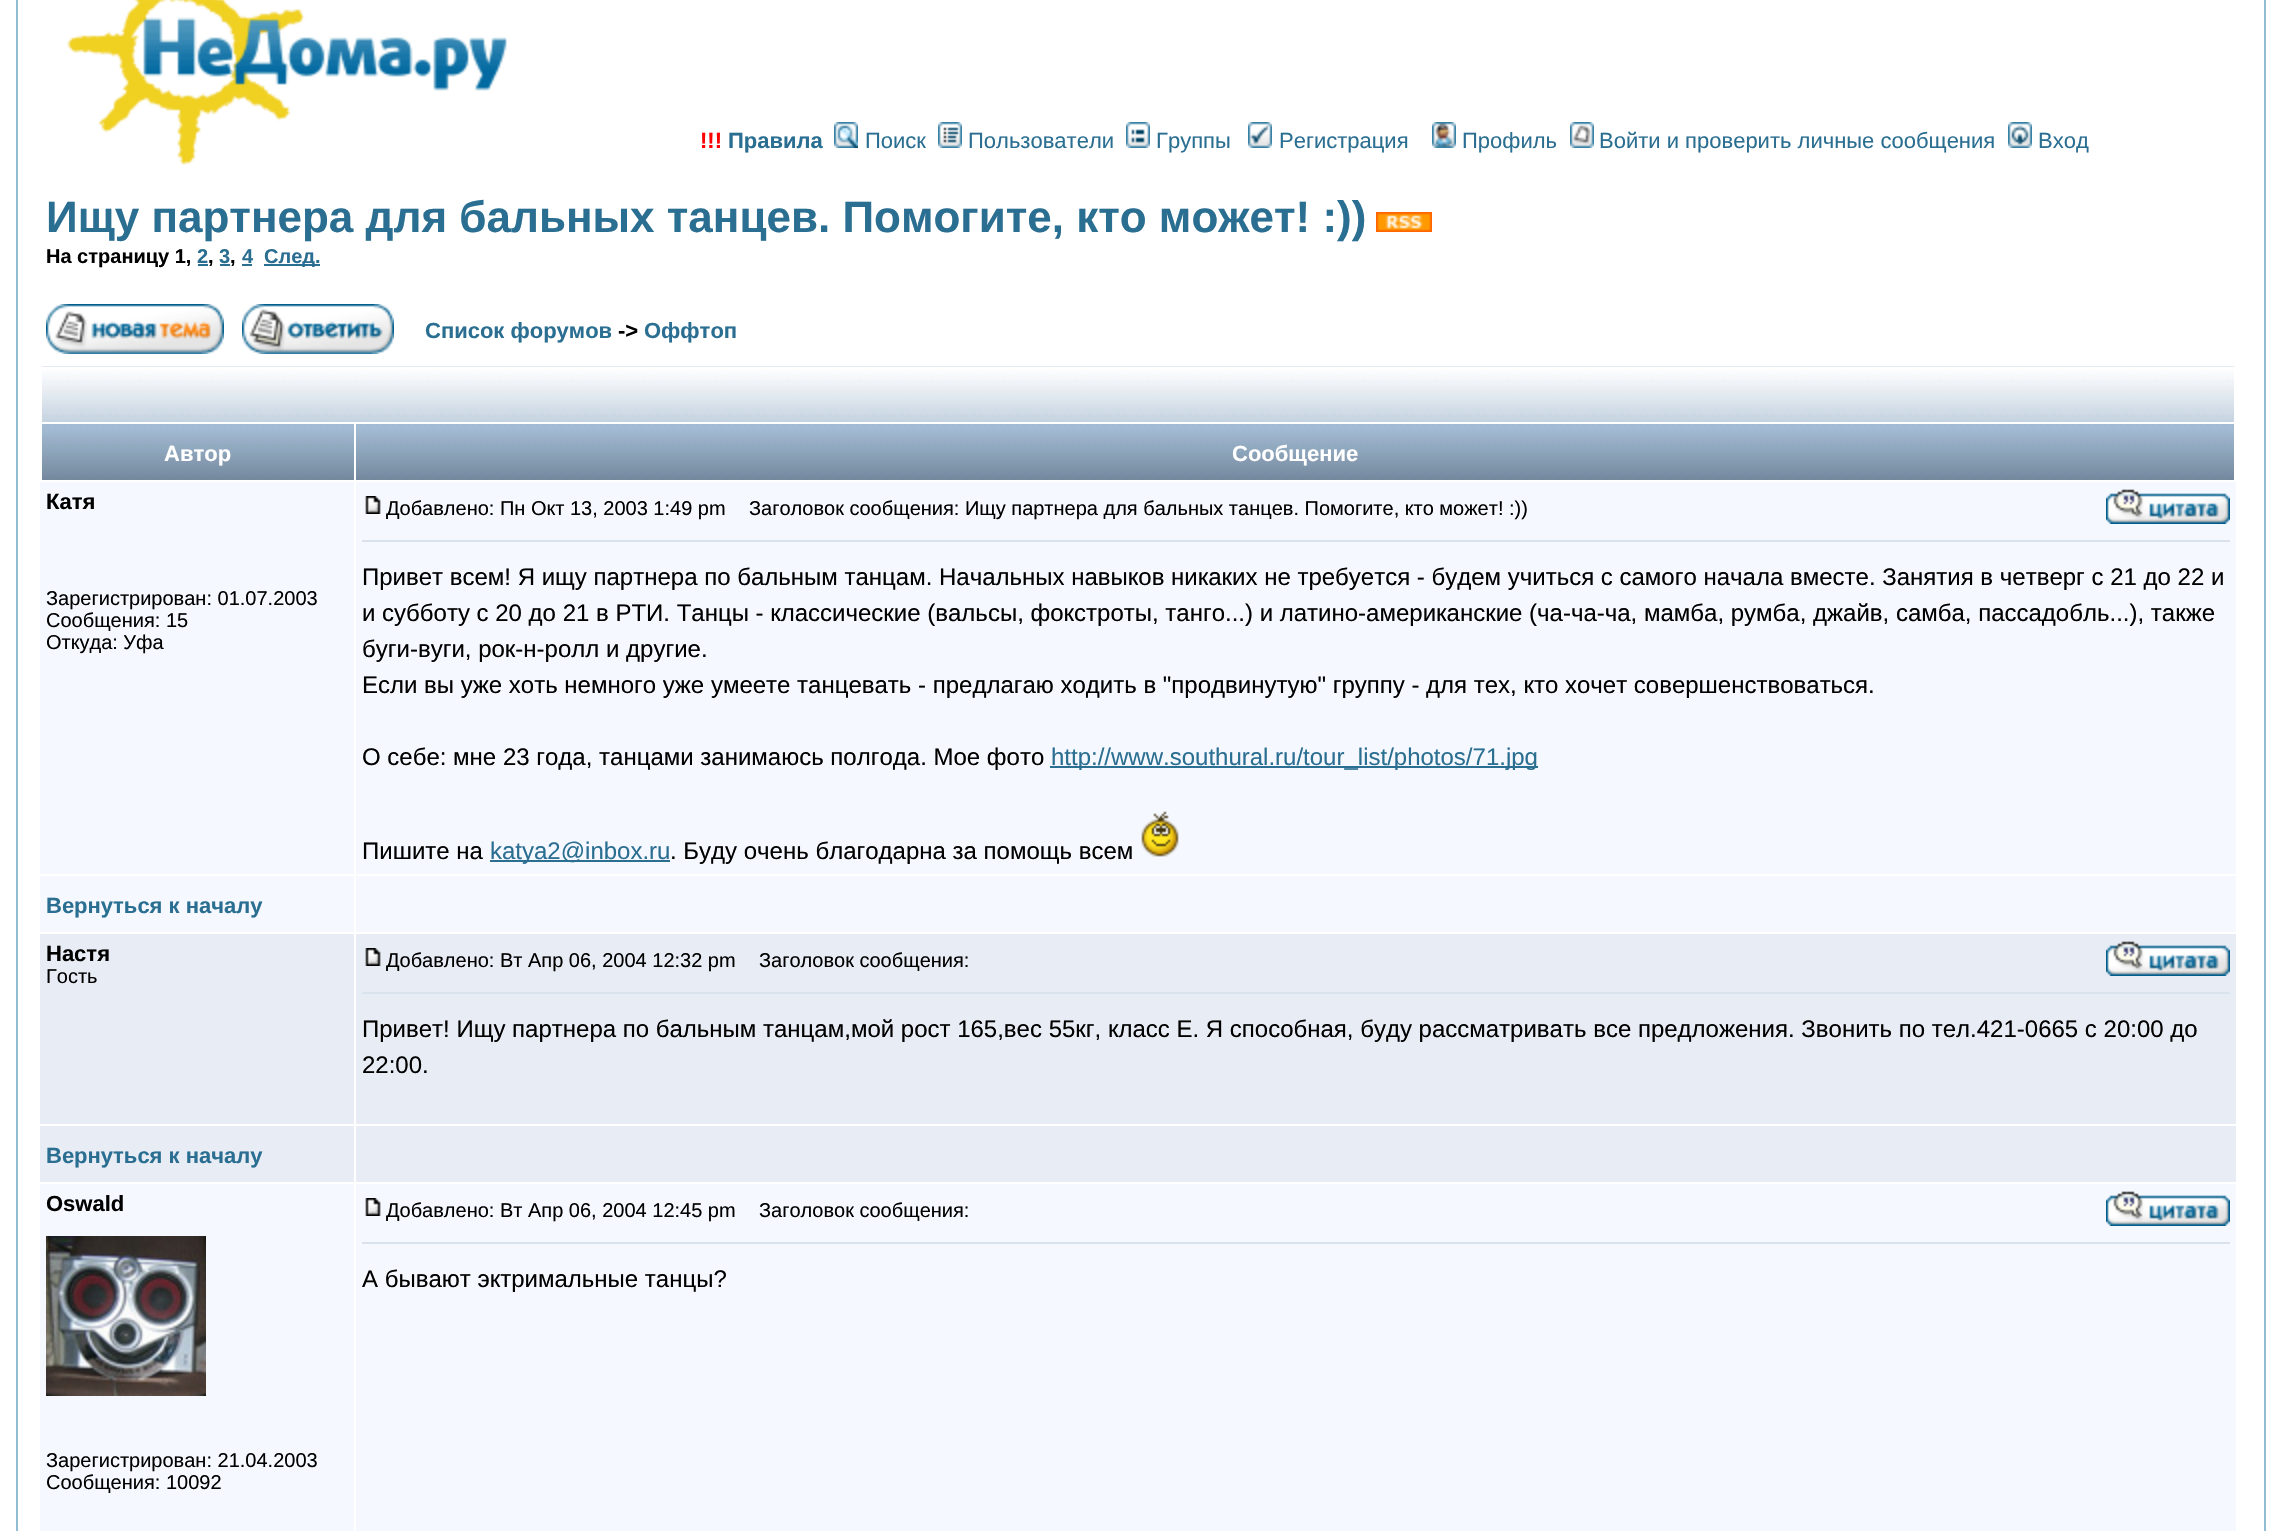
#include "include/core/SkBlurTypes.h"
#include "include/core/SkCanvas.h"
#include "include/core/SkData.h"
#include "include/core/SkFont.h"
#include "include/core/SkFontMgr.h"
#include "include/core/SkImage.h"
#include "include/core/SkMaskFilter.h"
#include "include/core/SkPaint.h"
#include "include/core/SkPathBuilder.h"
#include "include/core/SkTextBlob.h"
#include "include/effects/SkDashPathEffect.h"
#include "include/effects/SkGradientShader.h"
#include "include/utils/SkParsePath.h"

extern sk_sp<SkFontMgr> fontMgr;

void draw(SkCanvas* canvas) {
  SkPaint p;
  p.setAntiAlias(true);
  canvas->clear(SK_ColorWHITE);
  p.setStyle(SkPaint::kStroke_Style);
  p.setStrokeWidth(2);
  p.setColor(SkColorSetRGB(144, 189, 211));
  canvas->drawRect(SkRect::MakeLTRB(17, -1, 2265, 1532), p);
  canvas->drawImageRect(SkImages::DeferredFromEncodedData(SkData::MakeFromFileName("images/1.png")), SkRect::MakeLTRB(67, 0, 507, 165), SkSamplingOptions());
  canvas->drawImageRect(SkImages::DeferredFromEncodedData(SkData::MakeFromFileName("images/2.png")), SkRect::MakeLTRB(834, 122, 858, 148), SkSamplingOptions());
  canvas->drawImageRect(SkImages::DeferredFromEncodedData(SkData::MakeFromFileName("images/3.png")), SkRect::MakeLTRB(938, 122, 962, 148), SkSamplingOptions());
  canvas->drawImageRect(SkImages::DeferredFromEncodedData(SkData::MakeFromFileName("images/4.png")), SkRect::MakeLTRB(1126, 122, 1150, 148), SkSamplingOptions());
  canvas->drawImageRect(SkImages::DeferredFromEncodedData(SkData::MakeFromFileName("images/5.png")), SkRect::MakeLTRB(1248, 122, 1272, 148), SkSamplingOptions());
  canvas->drawImageRect(SkImages::DeferredFromEncodedData(SkData::MakeFromFileName("images/6.png")), SkRect::MakeLTRB(1432, 122, 1456, 148), SkSamplingOptions());
  canvas->drawImageRect(SkImages::DeferredFromEncodedData(SkData::MakeFromFileName("images/7.png")), SkRect::MakeLTRB(1570, 122, 1594, 148), SkSamplingOptions());
  canvas->drawImageRect(SkImages::DeferredFromEncodedData(SkData::MakeFromFileName("images/8.png")), SkRect::MakeLTRB(2008, 122, 2032, 148), SkSamplingOptions());
  canvas->drawImageRect(SkImages::DeferredFromEncodedData(SkData::MakeFromFileName("images/9.png")), SkRect::MakeLTRB(1376, 212, 1432, 232), SkSamplingOptions());
  p.setStyle(SkPaint::kFill_Style);
  p.setColor(SkColorSetRGB(42, 110, 145));
  canvas->drawRect(SkRect::MakeLTRB(198, 264, 208, 266), p);
  canvas->drawRect(SkRect::MakeLTRB(220, 264, 230, 266), p);
  canvas->drawRect(SkRect::MakeLTRB(242, 264, 252, 266), p);
  canvas->drawRect(SkRect::MakeLTRB(264, 264, 320, 266), p);
  canvas->drawImageRect(SkImages::DeferredFromEncodedData(SkData::MakeFromFileName("images/10.png")), SkRect::MakeLTRB(46, 304, 224, 354), SkSamplingOptions());
  canvas->drawImageRect(SkImages::DeferredFromEncodedData(SkData::MakeFromFileName("images/11.png")), SkRect::MakeLTRB(242, 304, 394, 354), SkSamplingOptions());
  canvas->drawImageRect(SkImages::DeferredFromEncodedData(SkData::MakeFromFileName("images/12.png")), SkRect::MakeLTRB(42, 366, 2234, 422), SkSamplingOptions());
  canvas->drawImageRect(SkImages::DeferredFromEncodedData(SkData::MakeFromFileName("images/13.png")), SkRect::MakeLTRB(42, 424, 354, 480), SkSamplingOptions());
  canvas->drawImageRect(SkImages::DeferredFromEncodedData(SkData::MakeFromFileName("images/14.png")), SkRect::MakeLTRB(356, 424, 2234, 480), SkSamplingOptions());
  p.setColor(SkColorSetRGB(245, 248, 254));
  canvas->drawRect(SkRect::MakeLTRB(40, 482, 354, 874), p);
  canvas->drawRect(SkRect::MakeLTRB(356, 482, 2236, 874), p);
  canvas->drawImageRect(SkImages::DeferredFromEncodedData(SkData::MakeFromFileName("images/15.png")), SkRect::MakeLTRB(365, 496, 381, 514), SkSamplingOptions());
  canvas->drawImageRect(SkImages::DeferredFromEncodedData(SkData::MakeFromFileName("images/16.png")), SkRect::MakeLTRB(2106, 489, 2230, 524), SkSamplingOptions());
  p.setColor(SkColorSetRGB(218, 226, 238));
  canvas->drawRect(SkRect::MakeLTRB(362, 540, 2230, 542), p);
  p.setColor(SkColorSetRGB(42, 110, 145));
  canvas->drawRect(SkRect::MakeLTRB(1050, 766, 1538, 768), p);
  canvas->drawRect(SkRect::MakeLTRB(490, 860, 670, 862), p);
  canvas->drawImageRect(SkImages::DeferredFromEncodedData(SkData::MakeFromFileName("images/17.png")), SkRect::MakeLTRB(1141, 811, 1179, 857), SkSamplingOptions());
  p.setColor(SkColorSetRGB(245, 248, 254));
  canvas->drawRect(SkRect::MakeLTRB(40, 876, 354, 932), p);
  canvas->drawRect(SkRect::MakeLTRB(356, 876, 2236, 932), p);
  p.setColor(SkColorSetRGB(232, 236, 244));
  canvas->drawRect(SkRect::MakeLTRB(40, 934, 354, 1124), p);
  canvas->drawRect(SkRect::MakeLTRB(356, 934, 2236, 1124), p);
  canvas->drawImageRect(SkImages::DeferredFromEncodedData(SkData::MakeFromFileName("images/18.png")), SkRect::MakeLTRB(365, 948, 381, 966), SkSamplingOptions());
  canvas->drawImageRect(SkImages::DeferredFromEncodedData(SkData::MakeFromFileName("images/19.png")), SkRect::MakeLTRB(2106, 941, 2230, 976), SkSamplingOptions());
  p.setColor(SkColorSetRGB(218, 226, 238));
  canvas->drawRect(SkRect::MakeLTRB(362, 992, 2230, 994), p);
  p.setColor(SkColorSetRGB(232, 236, 244));
  canvas->drawRect(SkRect::MakeLTRB(40, 1126, 354, 1182), p);
  canvas->drawRect(SkRect::MakeLTRB(356, 1126, 2236, 1182), p);
  p.setColor(SkColorSetRGB(245, 248, 254));
  canvas->drawRect(SkRect::MakeLTRB(40, 1184, 354, 1531), p);
  canvas->drawImageRect(SkImages::DeferredFromEncodedData(SkData::MakeFromFileName("images/20.png")), SkRect::MakeLTRB(46, 1236, 206, 1396), SkSamplingOptions());
  canvas->drawRect(SkRect::MakeLTRB(356, 1184, 2236, 1531), p);
  canvas->drawImageRect(SkImages::DeferredFromEncodedData(SkData::MakeFromFileName("images/15.png")), SkRect::MakeLTRB(365, 1198, 381, 1216), SkSamplingOptions());
  canvas->drawImageRect(SkImages::DeferredFromEncodedData(SkData::MakeFromFileName("images/16.png")), SkRect::MakeLTRB(2106, 1191, 2230, 1226), SkSamplingOptions());
  p.setColor(SkColorSetRGB(218, 226, 238));
  canvas->drawRect(SkRect::MakeLTRB(362, 1242, 2230, 1244), p);
  SkFont font1(fontMgr->matchFamilyStyle("Liberation Sans", SkFontStyle::Bold()), 22);
  font1.setSubpixel(true);
  p.setColor(SkColorSetRGB(255, 0, 0));
  canvas->drawString("!!!", 700, 148, font1, p);
  p.setColor(SkColorSetRGB(42, 110, 145));
  canvas->drawString("Правила", 728, 148, font1, p);
  SkFont font2(fontMgr->matchFamilyStyle("Liberation Sans", SkFontStyle::Normal()), 22);
  font2.setSubpixel(true);
  canvas->drawString("Поиск", 865, 148, font2, p);
  canvas->drawString("Пользователи", 968, 148, font2, p);
  canvas->drawString("Группы", 1156, 148, font2, p);
  canvas->drawString("Регистрация", 1279, 148, font2, p);
  canvas->drawString("Профиль", 1462, 148, font2, p);
  canvas->drawString("Войти и проверить личные сообщения", 1599, 148, font2, p);
  canvas->drawString("Вход", 2038, 148, font2, p);
  SkFont font3(fontMgr->matchFamilyStyle("Liberation Sans", SkFontStyle::Bold()), 44);
  font3.setSubpixel(true);
  canvas->drawString("Ищу партнера для бальных танцев. Помогите, кто может! :))", 46, 232, font3, p);
  SkFont font4(fontMgr->matchFamilyStyle("Liberation Sans", SkFontStyle::Bold()), 20);
  font4.setSubpixel(true);
  p.setColor(SK_ColorBLACK);
  canvas->drawString("На страницу 1,", 46, 263, font4, p);
  p.setColor(SkColorSetRGB(42, 110, 145));
  canvas->drawString("2", 197, 263, font4, p);
  p.setColor(SK_ColorBLACK);
  canvas->drawString(",", 208, 263, font4, p);
  p.setColor(SkColorSetRGB(42, 110, 145));
  canvas->drawString("3", 219, 263, font4, p);
  p.setColor(SK_ColorBLACK);
  canvas->drawString(",", 230, 263, font4, p);
  p.setColor(SkColorSetRGB(42, 110, 145));
  canvas->drawString("4", 242, 263, font4, p);
  canvas->drawString("След.", 264, 263, font4, p);
  canvas->drawString("Список форумов", 425, 338, font1, p);
  p.setColor(SK_ColorBLACK);
  canvas->drawString("->", 618, 338, font1, p);
  p.setColor(SkColorSetRGB(42, 110, 145));
  canvas->drawString("Оффтоп", 644, 338, font1, p);
  p.setColor(SK_ColorWHITE);
  canvas->drawString("Автор", 164, 461, font1, p);
  canvas->drawString("Сообщение", 1232, 461, font1, p);
  p.setColor(SK_ColorBLACK);
  canvas->drawString("Катя", 46, 509, font1, p);
  SkFont font5(fontMgr->matchFamilyStyle("Liberation Sans", SkFontStyle::Normal()), 20);
  font5.setSubpixel(true);
  canvas->drawString("Зарегистрирован: 01.07.2003", 46, 605, font5, p);
  canvas->drawString("Сообщения: 15", 46, 627, font5, p);
  canvas->drawString("Откуда: Уфа", 46, 649, font5, p);
  canvas->drawString("Добавлено: Пн Окт 13, 2003 1:49 pm", 386, 515, font5, p);
  canvas->drawString("Заголовок сообщения: Ищу партнера для бальных танцев. Помогите, кто может! :))", 749, 515, font5, p);
  SkFont font6(fontMgr->matchFamilyStyle("Liberation Sans", SkFontStyle::Normal()), 24);
  font6.setSubpixel(true);
  canvas->drawString("Привет всем! Я ищу партнера по бальным танцам. Начальных навыков никаких не требуется - будем учиться с самого начала вместе. Занятия в четверг с 21 до 22 и", 362, 585, font6, p);
  canvas->drawString("и субботу с 20 до 21 в РТИ. Танцы - классические (вальсы, фокстроты, танго...) и латино-американские (ча-ча-ча, мамба, румба, джайв, самба, пассадобль...), также", 362, 621, font6, p);
  canvas->drawString("буги-вуги, рок-н-ролл и другие.", 362, 657, font6, p);
  canvas->drawString("Если вы уже хоть немного уже умеете танцевать - предлагаю ходить в \"продвинутую\" группу - для тех, кто хочет совершенствоваться.", 362, 693, font6, p);
  canvas->drawString("О себе: мне 23 года, танцами занимаюсь полгода. Мое фото", 362, 765, font6, p);
  p.setColor(SkColorSetRGB(42, 110, 145));
  canvas->drawString("http://www.southural.ru/tour_list/photos/71.jpg", 1051, 765, font6, p);
  p.setColor(SK_ColorBLACK);
  canvas->drawString("Пишите на", 362, 859, font6, p);
  p.setColor(SkColorSetRGB(42, 110, 145));
  canvas->drawString("katya2@inbox.ru", 490, 859, font6, p);
  p.setColor(SK_ColorBLACK);
  canvas->drawString(". Буду очень благодарна за помощь всем", 670, 859, font6, p);
  p.setColor(SkColorSetRGB(42, 110, 145));
  canvas->drawString("Вернуться к началу", 46, 913, font1, p);
  p.setColor(SK_ColorBLACK);
  canvas->drawString("Настя", 46, 961, font1, p);
  canvas->drawString("Гость", 46, 983, font5, p);
  canvas->drawString("Добавлено: Вт Апр 06, 2004 12:32 pm", 386, 967, font5, p);
  canvas->drawString("Заголовок сообщения:", 759, 967, font5, p);
  canvas->drawString("Привет! Ищу партнера по бальным танцам,мой рост 165,вес 55кг, класс Е. Я способная, буду рассматривать все предложения. Звонить по тел.421-0665 с 20:00 до", 362, 1037, font6, p);
  canvas->drawString("22:00.", 362, 1073, font6, p);
  p.setColor(SkColorSetRGB(42, 110, 145));
  canvas->drawString("Вернуться к началу", 46, 1163, font1, p);
  p.setColor(SK_ColorBLACK);
  canvas->drawString("Oswald", 46, 1211, font1, p);
  canvas->drawString("Зарегистрирован: 21.04.2003", 46, 1467, font5, p);
  canvas->drawString("Сообщения: 10092", 46, 1489, font5, p);
  canvas->drawString("Добавлено: Вт Апр 06, 2004 12:45 pm", 386, 1217, font5, p);
  canvas->drawString("Заголовок сообщения:", 759, 1217, font5, p);
  canvas->drawString("А бывают эктримальные танцы?", 362, 1287, font6, p);
}
